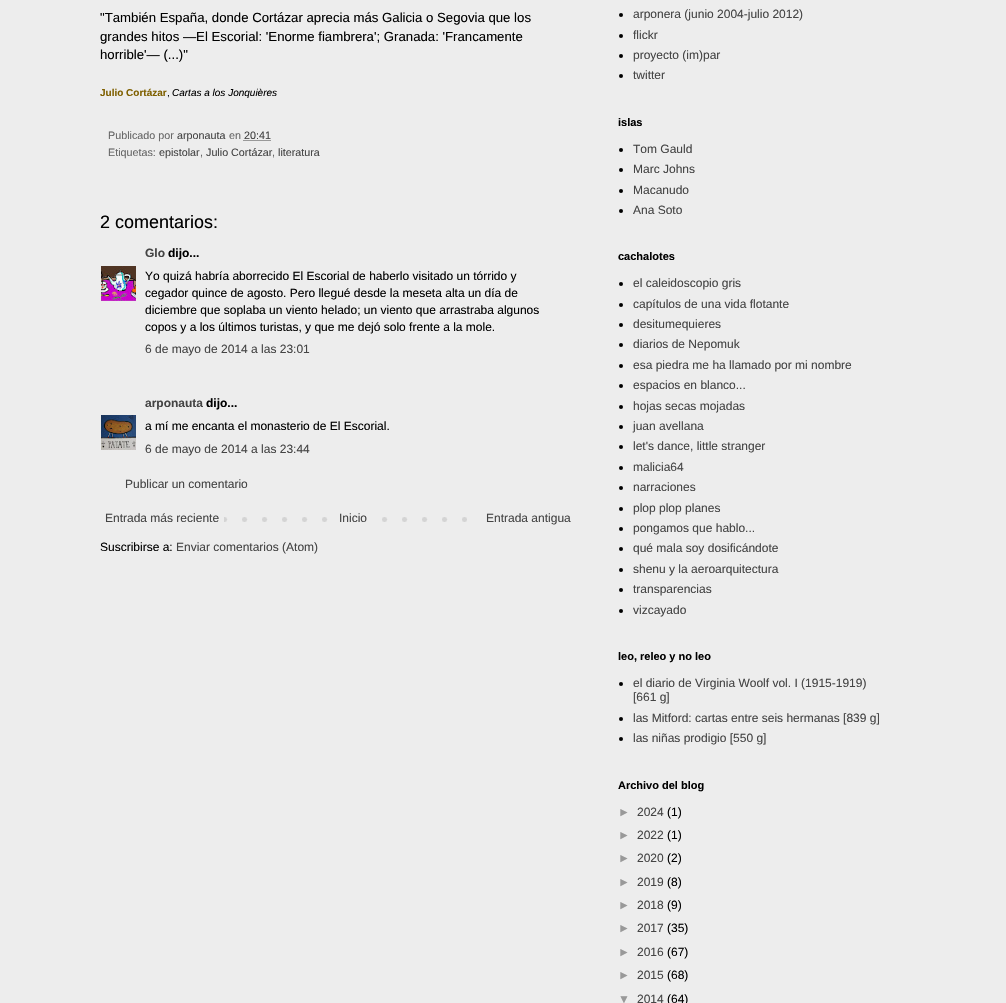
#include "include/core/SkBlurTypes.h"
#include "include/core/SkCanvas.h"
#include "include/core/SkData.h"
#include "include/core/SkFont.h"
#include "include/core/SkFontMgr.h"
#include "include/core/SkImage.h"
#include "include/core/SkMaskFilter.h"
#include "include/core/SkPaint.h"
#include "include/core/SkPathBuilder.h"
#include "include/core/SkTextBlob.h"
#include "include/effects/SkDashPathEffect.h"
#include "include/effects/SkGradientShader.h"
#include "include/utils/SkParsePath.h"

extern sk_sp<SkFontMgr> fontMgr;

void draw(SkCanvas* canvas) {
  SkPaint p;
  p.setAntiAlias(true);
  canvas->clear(SkColorSetRGB(237, 237, 237));
  p.setStyle(SkPaint::kStroke_Style);
  p.setStrokeWidth(1);
  p.setColor(SkColorSetRGB(68, 68, 68));
  p.setPathEffect(SkDashPathEffect::Make({{1, 1}}, 0));
  canvas->drawPath(SkPathBuilder().moveTo(243.5f, 140.5f).lineTo(270.5f, 140.5f).detach(), p);
  p.setPathEffect(nullptr);
  canvas->drawImageRect(SkImages::DeferredFromEncodedData(SkData::MakeFromFileName("images/1.png")), SkRect::MakeLTRB(101, 266, 136, 301), SkSamplingOptions());
  canvas->drawImageRect(SkImages::DeferredFromEncodedData(SkData::MakeFromFileName("images/2.png")), SkRect::MakeLTRB(101, 415, 136, 450), SkSamplingOptions());
  canvas->drawImageRect(SkImages::DeferredFromEncodedData(SkData::MakeFromFileName("images/3.png")), SkRect::MakeLTRB(224, 517, 467, 522), SkSamplingOptions());
  p.setStyle(SkPaint::kFill_Style);
  p.setColor(SkColorSetRGB(237, 237, 237));
  canvas->drawRect(SkRect::MakeLTRB(342, 517, 368, 522), p);
  p.setColor(SK_ColorBLACK);
  canvas->drawCircle(621, 15, 2, p);
  canvas->drawCircle(621, 36, 2, p);
  canvas->drawCircle(621, 56, 2, p);
  canvas->drawCircle(621, 76, 2, p);
  canvas->drawCircle(621, 150, 2, p);
  canvas->drawCircle(621, 170, 2, p);
  canvas->drawCircle(621, 191, 2, p);
  canvas->drawCircle(621, 211, 2, p);
  canvas->drawCircle(621, 284, 2, p);
  canvas->drawCircle(621, 305, 2, p);
  canvas->drawCircle(621, 325, 2, p);
  canvas->drawCircle(621, 345, 2, p);
  canvas->drawCircle(621, 366, 2, p);
  canvas->drawCircle(621, 386, 2, p);
  canvas->drawCircle(621, 407, 2, p);
  canvas->drawCircle(621, 427, 2, p);
  canvas->drawCircle(621, 447, 2, p);
  canvas->drawCircle(621, 468, 2, p);
  canvas->drawCircle(621, 488, 2, p);
  canvas->drawCircle(621, 509, 2, p);
  canvas->drawCircle(621, 529, 2, p);
  canvas->drawCircle(621, 549, 2, p);
  canvas->drawCircle(621, 570, 2, p);
  canvas->drawCircle(621, 590, 2, p);
  canvas->drawCircle(621, 611, 2, p);
  canvas->drawCircle(621, 684, 2, p);
  canvas->drawCircle(621, 719, 2, p);
  canvas->drawCircle(621, 739, 2, p);
  SkFont font1(fontMgr->matchFamilyStyle("Liberation Sans", SkFontStyle::Normal()), 13.2f);
  font1.setSubpixel(true);
  canvas->drawString("\"También España, donde Cortázar aprecia más Galicia o Segovia que los", 100, 22, font1, p);
  canvas->drawString("grandes hitos ―El Escorial: 'Enorme fiambrera'; Granada: 'Francamente", 100, 41, font1, p);
  canvas->drawString("horrible'― (...)\"", 100, 59, font1, p);
  SkFont font2(fontMgr->matchFamilyStyle("Liberation Sans", SkFontStyle::Bold()), 10);
  font2.setSubpixel(true);
  p.setColor(SkColorSetRGB(127, 96, 0));
  canvas->drawString("Julio Cortázar", 100, 96, font2, p);
  SkFont font3(fontMgr->matchFamilyStyle("Liberation Sans", SkFontStyle::Normal()), 10);
  font3.setSubpixel(true);
  p.setColor(SK_ColorBLACK);
  canvas->drawString(",", 167, 96, font3, p);
  SkFont font4(fontMgr->matchFamilyStyle("Liberation Sans", SkFontStyle::Italic()), 10);
  font4.setSubpixel(true);
  canvas->drawString("Cartas a los Jonquières", 172, 96, font4, p);
  SkFont font5(fontMgr->matchFamilyStyle("Liberation Sans", SkFontStyle::Normal()), 10.75f);
  font5.setSubpixel(true);
  p.setColor(SkColorSetRGB(102, 102, 102));
  canvas->drawString("Publicado por", 108, 139, font5, p);
  p.setColor(SkColorSetRGB(68, 68, 68));
  canvas->drawString("arponauta", 177, 139, font5, p);
  p.setColor(SkColorSetRGB(102, 102, 102));
  canvas->drawString("en", 229, 139, font5, p);
  p.setColor(SkColorSetRGB(68, 68, 68));
  canvas->drawString("20:41", 244, 139, font5, p);
  p.setColor(SkColorSetRGB(102, 102, 102));
  canvas->drawString("Etiquetas:", 108, 156, font5, p);
  p.setColor(SkColorSetRGB(68, 68, 68));
  canvas->drawString("epistolar", 159, 156, font5, p);
  p.setColor(SkColorSetRGB(102, 102, 102));
  canvas->drawString(",", 200, 156, font5, p);
  p.setColor(SkColorSetRGB(68, 68, 68));
  canvas->drawString("Julio Cortázar", 206, 156, font5, p);
  p.setColor(SkColorSetRGB(102, 102, 102));
  canvas->drawString(",", 272, 156, font5, p);
  p.setColor(SkColorSetRGB(68, 68, 68));
  canvas->drawString("literatura", 278, 156, font5, p);
  SkFont font6(fontMgr->matchFamilyStyle("Liberation Sans", SkFontStyle::Normal()), 18);
  font6.setSubpixel(true);
  p.setColor(SK_ColorBLACK);
  canvas->drawString("2 comentarios:", 100, 228, font6, p);
  SkFont font7(fontMgr->matchFamilyStyle("Liberation Sans", SkFontStyle::Bold()), 12);
  font7.setSubpixel(true);
  p.setColor(SkColorSetRGB(68, 68, 68));
  canvas->drawString("Glo", 145, 257, font7, p);
  p.setColor(SK_ColorBLACK);
  canvas->drawString("dijo...", 168, 257, font7, p);
  SkFont font8(fontMgr->matchFamilyStyle("Liberation Sans", SkFontStyle::Normal()), 12);
  font8.setSubpixel(true);
  canvas->drawString("Yo quizá habría aborrecido El Escorial de haberlo visitado un tórrido y", 145, 280, font8, p);
  canvas->drawString("cegador quince de agosto. Pero llegué desde la meseta alta un día de", 145, 297, font8, p);
  canvas->drawString("diciembre que soplaba un viento helado; un viento que arrastraba algunos", 145, 314, font8, p);
  canvas->drawString("copos y a los últimos turistas, y que me dejó solo frente a la mole.", 145, 331, font8, p);
  p.setColor(SkColorSetRGB(68, 68, 68));
  canvas->drawString("6 de mayo de 2014 a las 23:01", 145, 353, font8, p);
  canvas->drawString("arponauta", 145, 407, font7, p);
  p.setColor(SK_ColorBLACK);
  canvas->drawString("dijo...", 206, 407, font7, p);
  canvas->drawString("a mí me encanta el monasterio de El Escorial.", 145, 430, font8, p);
  p.setColor(SkColorSetRGB(68, 68, 68));
  canvas->drawString("6 de mayo de 2014 a las 23:44", 145, 453, font8, p);
  canvas->drawString("Publicar un comentario", 125, 488, font8, p);
  canvas->drawString("Entrada más reciente", 105, 522, font8, p);
  canvas->drawString("Inicio", 339, 522, font8, p);
  canvas->drawString("Entrada antigua", 486, 522, font8, p);
  p.setColor(SK_ColorBLACK);
  canvas->drawString("Suscribirse a:", 100, 551, font8, p);
  p.setColor(SkColorSetRGB(68, 68, 68));
  canvas->drawString("Enviar comentarios (Atom)", 176, 551, font8, p);
  canvas->drawString("arponera (junio 2004-julio 2012)", 633, 18, font8, p);
  canvas->drawString("flickr", 633, 39, font8, p);
  canvas->drawString("proyecto (im)par", 633, 59, font8, p);
  canvas->drawString("twitter", 633, 79, font8, p);
  SkFont font9(fontMgr->matchFamilyStyle("Liberation Sans", SkFontStyle::Bold()), 11);
  font9.setSubpixel(true);
  p.setColor(SK_ColorBLACK);
  canvas->drawString("islas", 618, 126, font9, p);
  p.setColor(SkColorSetRGB(68, 68, 68));
  canvas->drawString("Tom Gauld", 633, 153, font8, p);
  canvas->drawString("Marc Johns", 633, 173, font8, p);
  canvas->drawString("Macanudo", 633, 194, font8, p);
  canvas->drawString("Ana Soto", 633, 214, font8, p);
  p.setColor(SK_ColorBLACK);
  canvas->drawString("cachalotes", 618, 260, font9, p);
  p.setColor(SkColorSetRGB(68, 68, 68));
  canvas->drawString("el caleidoscopio gris", 633, 287, font8, p);
  canvas->drawString("capítulos de una vida flotante", 633, 308, font8, p);
  canvas->drawString("desitumequieres", 633, 328, font8, p);
  canvas->drawString("diarios de Nepomuk", 633, 348, font8, p);
  canvas->drawString("esa piedra me ha llamado por mi nombre", 633, 369, font8, p);
  canvas->drawString("espacios en blanco...", 633, 389, font8, p);
  canvas->drawString("hojas secas mojadas", 633, 410, font8, p);
  canvas->drawString("juan avellana", 633, 430, font8, p);
  canvas->drawString("let's dance, little stranger", 633, 450, font8, p);
  canvas->drawString("malicia64", 633, 471, font8, p);
  canvas->drawString("narraciones", 633, 491, font8, p);
  canvas->drawString("plop plop planes", 633, 512, font8, p);
  canvas->drawString("pongamos que hablo...", 633, 532, font8, p);
  canvas->drawString("qué mala soy dosificándote", 633, 552, font8, p);
  canvas->drawString("shenu y la aeroarquitectura", 633, 573, font8, p);
  canvas->drawString("transparencias", 633, 593, font8, p);
  canvas->drawString("vizcayado", 633, 614, font8, p);
  p.setColor(SK_ColorBLACK);
  canvas->drawString("leo, releo y no leo", 618, 660, font9, p);
  p.setColor(SkColorSetRGB(68, 68, 68));
  canvas->drawString("el diario de Virginia Woolf vol. I (1915-1919)", 633, 687, font8, p);
  canvas->drawString("[661 g]", 633, 701, font8, p);
  canvas->drawString("las Mitford: cartas entre seis hermanas [839 g]", 633, 722, font8, p);
  canvas->drawString("las niñas prodigio [550 g]", 633, 742, font8, p);
  p.setColor(SK_ColorBLACK);
  canvas->drawString("Archivo del blog", 618, 789, font9, p);
  p.setColor(SkColorSetRGB(153, 153, 153));
  canvas->drawString("►", 618, 816, font8, p);
  p.setColor(SkColorSetRGB(68, 68, 68));
  canvas->drawString("2024", 637, 816, font8, p);
  p.setColor(SK_ColorBLACK);
  canvas->drawString("(1)", 667, 816, font8, p);
  p.setColor(SkColorSetRGB(153, 153, 153));
  canvas->drawString("►", 618, 839, font8, p);
  p.setColor(SkColorSetRGB(68, 68, 68));
  canvas->drawString("2022", 637, 839, font8, p);
  p.setColor(SK_ColorBLACK);
  canvas->drawString("(1)", 667, 839, font8, p);
  p.setColor(SkColorSetRGB(153, 153, 153));
  canvas->drawString("►", 618, 862, font8, p);
  p.setColor(SkColorSetRGB(68, 68, 68));
  canvas->drawString("2020", 637, 862, font8, p);
  p.setColor(SK_ColorBLACK);
  canvas->drawString("(2)", 667, 862, font8, p);
  p.setColor(SkColorSetRGB(153, 153, 153));
  canvas->drawString("►", 618, 886, font8, p);
  p.setColor(SkColorSetRGB(68, 68, 68));
  canvas->drawString("2019", 637, 886, font8, p);
  p.setColor(SK_ColorBLACK);
  canvas->drawString("(8)", 667, 886, font8, p);
  p.setColor(SkColorSetRGB(153, 153, 153));
  canvas->drawString("►", 618, 909, font8, p);
  p.setColor(SkColorSetRGB(68, 68, 68));
  canvas->drawString("2018", 637, 909, font8, p);
  p.setColor(SK_ColorBLACK);
  canvas->drawString("(9)", 667, 909, font8, p);
  p.setColor(SkColorSetRGB(153, 153, 153));
  canvas->drawString("►", 618, 932, font8, p);
  p.setColor(SkColorSetRGB(68, 68, 68));
  canvas->drawString("2017", 637, 932, font8, p);
  p.setColor(SK_ColorBLACK);
  canvas->drawString("(35)", 667, 932, font8, p);
  p.setColor(SkColorSetRGB(153, 153, 153));
  canvas->drawString("►", 618, 956, font8, p);
  p.setColor(SkColorSetRGB(68, 68, 68));
  canvas->drawString("2016", 637, 956, font8, p);
  p.setColor(SK_ColorBLACK);
  canvas->drawString("(67)", 667, 956, font8, p);
  p.setColor(SkColorSetRGB(153, 153, 153));
  canvas->drawString("►", 618, 979, font8, p);
  p.setColor(SkColorSetRGB(68, 68, 68));
  canvas->drawString("2015", 637, 979, font8, p);
  p.setColor(SK_ColorBLACK);
  canvas->drawString("(68)", 667, 979, font8, p);
  p.setColor(SkColorSetRGB(153, 153, 153));
  canvas->drawString("▼", 618, 1003, font8, p);
  p.setColor(SkColorSetRGB(68, 68, 68));
  canvas->drawString("2014", 637, 1003, font8, p);
  p.setColor(SK_ColorBLACK);
  canvas->drawString("(64)", 667, 1003, font8, p);
}
